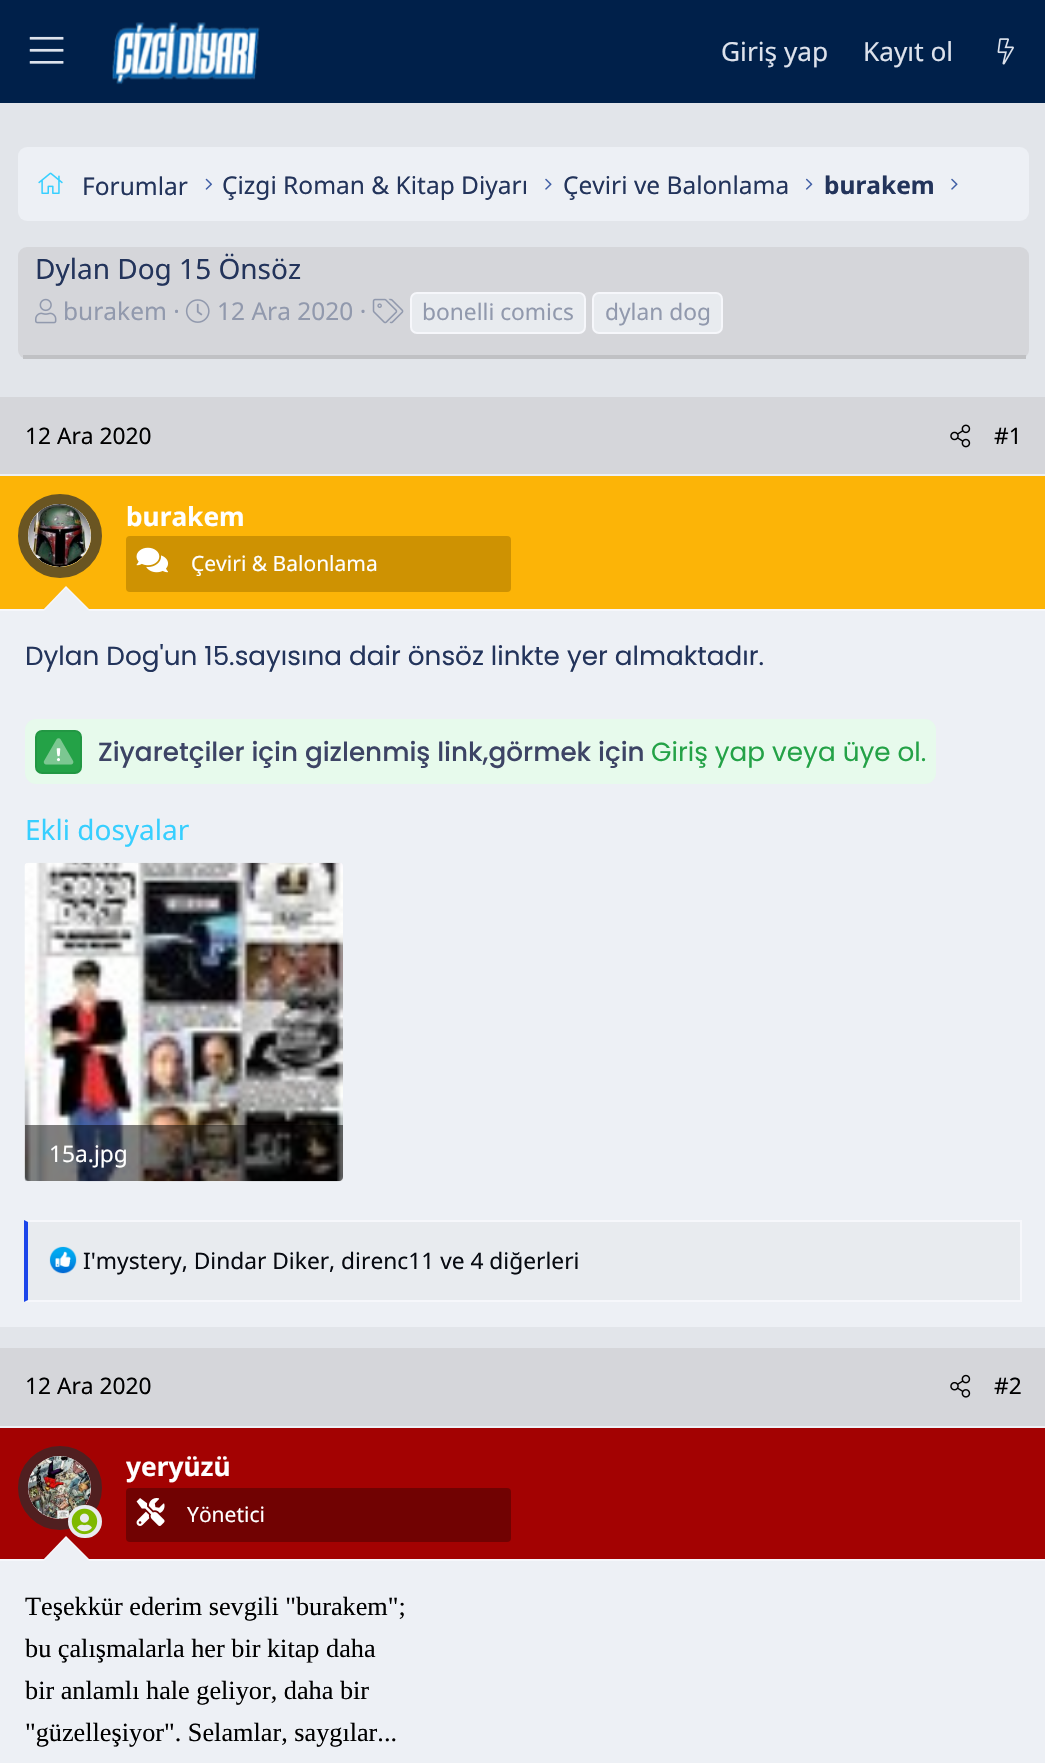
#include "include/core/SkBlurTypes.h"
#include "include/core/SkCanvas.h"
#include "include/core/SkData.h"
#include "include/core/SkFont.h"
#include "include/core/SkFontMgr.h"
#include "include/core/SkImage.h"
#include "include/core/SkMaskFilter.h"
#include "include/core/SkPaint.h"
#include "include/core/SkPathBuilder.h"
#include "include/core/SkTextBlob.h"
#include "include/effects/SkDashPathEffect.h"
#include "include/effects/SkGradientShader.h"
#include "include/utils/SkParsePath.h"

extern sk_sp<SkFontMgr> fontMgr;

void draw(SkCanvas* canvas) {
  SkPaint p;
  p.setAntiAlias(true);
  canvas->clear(SkColorSetRGB(226, 229, 234));
  p.setColor(SkColorSetRGB(0, 32, 74));
  canvas->drawRect(SkRect::MakeLTRB(0, 0, 1045, 103), p);
  canvas->drawImageRect(SkImages::DeferredFromEncodedData(SkData::MakeFromFileName("images/1.png")), SkRect::MakeLTRB(29, 36, 64, 64), SkSamplingOptions());
  canvas->drawImageRect(SkImages::DeferredFromEncodedData(SkData::MakeFromFileName("images/2.png")), SkRect::MakeLTRB(112, 22, 260, 85), SkSamplingOptions());
  canvas->drawImageRect(SkImages::DeferredFromEncodedData(SkData::MakeFromFileName("images/3.png")), SkRect::MakeLTRB(997, 38, 1014, 65), SkSamplingOptions());
  p.setColor(SkColorSetRGB(237, 240, 245));
  canvas->drawRoundRect(SkRect::MakeLTRB(18, 147, 1029, 221), 9, 9, p);
  canvas->drawImageRect(SkImages::DeferredFromEncodedData(SkData::MakeFromFileName("images/4.png")), SkRect::MakeLTRB(38, 172, 63, 194), SkSamplingOptions());
  canvas->drawImageRect(SkImages::DeferredFromEncodedData(SkData::MakeFromFileName("images/5.png")), SkRect::MakeLTRB(205, 178, 213, 190), SkSamplingOptions());
  canvas->drawImageRect(SkImages::DeferredFromEncodedData(SkData::MakeFromFileName("images/6.png")), SkRect::MakeLTRB(545, 178, 552, 190), SkSamplingOptions());
  canvas->drawImageRect(SkImages::DeferredFromEncodedData(SkData::MakeFromFileName("images/7.png")), SkRect::MakeLTRB(805, 178, 813, 190), SkSamplingOptions());
  canvas->drawImageRect(SkImages::DeferredFromEncodedData(SkData::MakeFromFileName("images/6.png")), SkRect::MakeLTRB(951, 178, 958, 190), SkSamplingOptions());
  p.setColor(SkColorSetRGB(213, 214, 218));
  canvas->drawRoundRect(SkRect::MakeLTRB(18, 247, 1029, 359), 9, 9, p);
  p.setColor(SkColorSetRGB(192, 193, 196));
  canvas->drawRect(SkRect::MakeLTRB(23, 355, 1026, 359), p);
  canvas->drawImageRect(SkImages::DeferredFromEncodedData(SkData::MakeFromFileName("images/8.png")), SkRect::MakeLTRB(35, 298, 57, 324), SkSamplingOptions());
  canvas->drawImageRect(SkImages::DeferredFromEncodedData(SkData::MakeFromFileName("images/9.png")), SkRect::MakeLTRB(185, 299, 210, 323), SkSamplingOptions());
  canvas->drawImageRect(SkImages::DeferredFromEncodedData(SkData::MakeFromFileName("images/10.png")), SkRect::MakeLTRB(372, 298, 404, 324), SkSamplingOptions());
  p.setColor(SkColorSetRGB(232, 235, 239));
  canvas->drawRoundRect(SkRect::MakeLTRB(411, 293, 585, 333), 6, 6, p);
  p.setStyle(SkPaint::kStroke_Style);
  p.setStrokeWidth(2);
  p.setColor(SkColorSetRGB(246, 247, 251));
  canvas->drawRoundRect(SkRect::MakeLTRB(411, 293, 585, 333), 6, 6, p);
  p.setStyle(SkPaint::kFill_Style);
  p.setColor(SkColorSetRGB(232, 235, 239));
  canvas->drawRoundRect(SkRect::MakeLTRB(593, 293, 722, 333), 6, 6, p);
  p.setStyle(SkPaint::kStroke_Style);
  p.setColor(SkColorSetRGB(246, 247, 251));
  canvas->drawRoundRect(SkRect::MakeLTRB(593, 293, 722, 333), 6, 6, p);
  p.setStyle(SkPaint::kFill_Style);
  p.setColor(SkColorSetRGB(213, 214, 218));
  canvas->drawRect(SkRect::MakeLTRB(0, 397, 1045, 474), p);
  p.setColor(SkColorSetRGB(237, 240, 245));
  canvas->drawRect(SkRect::MakeLTRB(0, 474, 1045, 476), p);
  canvas->drawImageRect(SkImages::DeferredFromEncodedData(SkData::MakeFromFileName("images/11.png")), SkRect::MakeLTRB(950, 424, 971, 448), SkSamplingOptions());
  p.setColor(SkColorSetRGB(246, 247, 251));
  canvas->drawRect(SkRect::MakeLTRB(0, 609, 1045, 611), p);
  p.setColor(SkColorSetRGB(252, 180, 7));
  canvas->drawRect(SkRect::MakeLTRB(0, 476, 1045, 609), p);
  p.setStyle(SkPaint::kStroke_Style);
  p.setStrokeWidth(11);
  p.setColor(SkColorSetRGB(106, 85, 34));
  canvas->drawCircle(60, 536, 36.5f, p);
  p.setStyle(SkPaint::kFill_Style);
  p.setColor(SkColorSetRGB(237, 240, 245));
  canvas->drawCircle(59.5f, 535.5f, 31.5f, p);
  canvas->drawImageRect(SkImages::DeferredFromEncodedData(SkData::MakeFromFileName("images/12.png")), SkRect::MakeLTRB(28, 504, 91, 567), SkSamplingOptions());
  p.setColor(SkColorSetRGB(206, 146, 2));
  canvas->drawRoundRect(SkRect::MakeLTRB(126, 536, 511, 592), 4, 4, p);
  canvas->drawImageRect(SkImages::DeferredFromEncodedData(SkData::MakeFromFileName("images/13.png")), SkRect::MakeLTRB(136, 547, 169, 573), SkSamplingOptions());
  p.setColor(SkColorSetRGB(246, 247, 251));
  canvas->drawPath(SkPathBuilder().moveTo(91, 611).lineTo(42, 611).lineTo(66, 586).close().detach(), p);
  p.setColor(SkColorSetRGB(237, 240, 245));
  canvas->drawPath(SkPathBuilder().moveTo(89, 611).lineTo(44, 611).lineTo(66, 588).close().detach(), p);
  canvas->drawRect(SkRect::MakeLTRB(0, 611, 1045, 1327), p);
  p.setColor(SkColorSetRGB(231, 250, 236));
  canvas->drawRoundRect(SkRect::MakeLTRB(25, 719, 936, 784), 11, 11, p);
  p.setColor(SkColorSetRGB(36, 162, 71));
  canvas->drawRoundRect(SkRect::MakeLTRB(36, 731, 81, 773), 6, 6, p);
  p.setStyle(SkPaint::kStroke_Style);
  p.setStrokeWidth(2);
  p.setColor(SkColorSetRGB(34, 151, 67));
  canvas->drawRoundRect(SkRect::MakeLTRB(36, 731, 81, 773), 6, 6, p);
  canvas->drawImageRect(SkImages::DeferredFromEncodedData(SkData::MakeFromFileName("images/15.png")), SkRect::MakeLTRB(56, 748, 61, 762), SkSamplingOptions());
  canvas->drawImageRect(SkImages::DeferredFromEncodedData(SkData::MakeFromFileName("images/14.png")), SkRect::MakeLTRB(43, 738, 74, 765), SkSamplingOptions());
  canvas->drawImageRect(SkImages::DeferredFromEncodedData(SkData::MakeFromFileName("images/16.png")), SkRect::MakeLTRB(24, 862, 343, 1182), SkSamplingOptions());
  p.setStyle(SkPaint::kFill_Style);
  p.setColor(SkColorSetARGB(128, 0, 0, 0));
  canvas->drawPath(SkPathBuilder().moveTo(25, 1125).lineTo(343, 1125).lineTo(343, 1177).cubicTo(343, 1179, 341, 1181, 339, 1181).lineTo(29, 1181).cubicTo(27, 1181, 25, 1179, 25, 1177).close().detach(), p);
  p.setColor(SkColorSetRGB(232, 235, 239));
  canvas->drawRect(SkRect::MakeLTRB(28, 1222, 1020, 1300), p);
  p.setColor(SkColorSetRGB(246, 247, 251));
  canvas->drawPath(SkPathBuilder().moveTo(24, 1220).lineTo(1022, 1220).lineTo(1020, 1222).lineTo(28, 1222).close().detach(), p);
  canvas->drawRect(SkRect::MakeLTRB(1020, 1220, 1022, 1302), p);
  canvas->drawPath(SkPathBuilder().moveTo(1022, 1302).lineTo(24, 1302).lineTo(28, 1300).lineTo(1020, 1300).close().detach(), p);
  p.setColor(SkColorSetRGB(28, 70, 234));
  canvas->drawPath(SkPathBuilder().moveTo(24, 1302).lineTo(24, 1220).lineTo(28, 1222).lineTo(28, 1300).close().detach(), p);
  canvas->drawImageRect(SkImages::DeferredFromEncodedData(SkData::MakeFromFileName("images/17.png")), SkRect::MakeLTRB(49, 1246, 77, 1274), SkSamplingOptions());
  p.setColor(SkColorSetRGB(213, 214, 218));
  canvas->drawRect(SkRect::MakeLTRB(0, 1348, 1045, 1426), p);
  p.setColor(SkColorSetRGB(237, 240, 245));
  canvas->drawRect(SkRect::MakeLTRB(0, 1426, 1045, 1428), p);
  canvas->drawImageRect(SkImages::DeferredFromEncodedData(SkData::MakeFromFileName("images/18.png")), SkRect::MakeLTRB(950, 1374, 971, 1398), SkSamplingOptions());
  p.setColor(SkColorSetRGB(246, 247, 251));
  canvas->drawRect(SkRect::MakeLTRB(0, 1559, 1045, 1561), p);
  p.setColor(SkColorSetRGB(163, 2, 2));
  canvas->drawRect(SkRect::MakeLTRB(0, 1428, 1045, 1559), p);
  p.setStyle(SkPaint::kStroke_Style);
  p.setStrokeWidth(11);
  p.setColor(SkColorSetRGB(80, 31, 32));
  canvas->drawCircle(60, 1488, 36.5f, p);
  p.setStyle(SkPaint::kFill_Style);
  p.setColor(SkColorSetRGB(237, 240, 245));
  canvas->drawCircle(59.5f, 1487.5f, 31.5f, p);
  canvas->drawImageRect(SkImages::DeferredFromEncodedData(SkData::MakeFromFileName("images/19.png")), SkRect::MakeLTRB(28, 1456, 91, 1519), SkSamplingOptions());
  p.setColor(SkColorSetRGB(232, 235, 239));
  canvas->drawRoundRect(SkRect::MakeLTRB(70, 1507, 100, 1536), 14.5f, 14.5f, p);
  p.setStyle(SkPaint::kStroke_Style);
  p.setStrokeWidth(4);
  canvas->drawRoundRect(SkRect::MakeLTRB(70, 1507, 100, 1536), 14.5f, 14.5f, p);
  canvas->drawImageRect(SkImages::DeferredFromEncodedData(SkData::MakeFromFileName("images/20.png")), SkRect::MakeLTRB(71, 1508, 98, 1535), SkSamplingOptions());
  p.setStyle(SkPaint::kFill_Style);
  p.setColor(SkColorSetRGB(113, 2, 2));
  canvas->drawRoundRect(SkRect::MakeLTRB(126, 1488, 511, 1542), 4, 4, p);
  canvas->drawImageRect(SkImages::DeferredFromEncodedData(SkData::MakeFromFileName("images/21.png")), SkRect::MakeLTRB(136, 1498, 165, 1526), SkSamplingOptions());
  p.setColor(SkColorSetRGB(246, 247, 251));
  canvas->drawPath(SkPathBuilder().moveTo(91, 1561).lineTo(42, 1561).lineTo(66, 1536).close().detach(), p);
  p.setColor(SkColorSetRGB(237, 240, 245));
  canvas->drawPath(SkPathBuilder().moveTo(89, 1561).lineTo(44, 1561).lineTo(66, 1538).close().detach(), p);
  canvas->drawRect(SkRect::MakeLTRB(0, 1561, 1045, 1763), p);
  SkFont font1(fontMgr->matchFamilyStyle("Noto Sans", SkFontStyle::Normal()), 26.25f);
  font1.setSubpixel(true);
  p.setColor(SkColorSetRGB(221, 226, 236));
  canvas->drawString("Giriş yap", 721, 61, font1, p);
  canvas->drawString("Kayıt ol", 863, 61, font1, p);
  SkFont font2(fontMgr->matchFamilyStyle("Noto Sans", SkFontStyle::Normal()), 24.5f);
  font2.setSubpixel(true);
  p.setColor(SkColorSetRGB(35, 52, 91));
  canvas->drawString("Forumlar", 82, 195, font2, p);
  canvas->drawString("Çizgi Roman & Kitap Diyarı", 222, 194, font2, p);
  canvas->drawString("Çeviri ve Balonlama", 563, 194, font2, p);
  SkFont font3(fontMgr->matchFamilyStyle("Noto Sans", SkFontStyle::Bold()), 24.5f);
  font3.setSubpixel(true);
  canvas->drawString("burakem", 824, 194, font3, p);
  SkFont font4(fontMgr->matchFamilyStyle("Noto Sans", SkFontStyle::Normal()), 28);
  font4.setSubpixel(true);
  canvas->drawString("Dylan Dog 15 Önsöz", 35, 279, font4, p);
  p.setColor(SkColorSetRGB(145, 153, 173));
  canvas->drawString("burakem ·", 63, 320, font2, p);
  canvas->drawString("12 Ara 2020 ·", 217, 320, font2, p);
  SkFont font5(fontMgr->matchFamilyStyle("Noto Sans", SkFontStyle::Normal()), 22.75f);
  font5.setSubpixel(true);
  canvas->drawString("bonelli comics", 422, 320, font5, p);
  canvas->drawString("dylan dog", 605, 320, font5, p);
  p.setColor(SK_ColorBLACK);
  canvas->drawString("12 Ara 2020", 25, 444, font5, p);
  canvas->drawString("#1", 994, 444, font5, p);
  SkFont font6(fontMgr->matchFamilyStyle("Noto Sans", SkFontStyle::Bold()), 26.25f);
  font6.setSubpixel(true);
  p.setColor(SK_ColorWHITE);
  canvas->drawString("burakem", 126, 526, font6, p);
  SkFont font7(fontMgr->matchFamilyStyle("Noto Sans", SkFontStyle::Normal()), 21);
  font7.setSubpixel(true);
  canvas->drawString("Çeviri & Balonlama", 191, 571, font7, p);
  SkFont font8(fontMgr->matchFamilyStyle("Poppins", SkFontStyle::Normal()), 26.25f);
  font8.setSubpixel(true);
  p.setColor(SkColorSetRGB(35, 52, 91));
  canvas->drawString("Dylan Dog'un 15.sayısına dair önsöz linkte yer almaktadır.", 25, 665, font8, p);
  SkFont font9(fontMgr->matchFamilyStyle("Poppins", SkFontStyle(500, SkFontStyle::kNormal_Width, SkFontStyle::kUpright_Slant)), 26.25f);
  font9.setSubpixel(true);
  p.setColor(SkColorSetRGB(61, 68, 101));
  canvas->drawString("Ziyaretçiler için gizlenmiş link,görmek için", 98, 761, font9, p);
  p.setColor(SkColorSetRGB(36, 162, 71));
  canvas->drawString("Giriş yap veya üye ol.", 651, 761, font8, p);
  p.setColor(SkColorSetRGB(55, 207, 255));
  canvas->drawString("Ekli dosyalar", 25, 840, font4, p);
  p.setColor(SK_ColorWHITE);
  canvas->drawString("15a.jpg", 49, 1162, font5, p);
  p.setColor(SkColorSetRGB(7, 10, 17));
  canvas->drawString("I'mystery, Dindar Diker, direnc11 ve 4 diğerleri", 83, 1269, font5, p);
  p.setColor(SK_ColorBLACK);
  canvas->drawString("12 Ara 2020", 25, 1394, font5, p);
  canvas->drawString("#2", 994, 1394, font5, p);
  p.setColor(SK_ColorWHITE);
  canvas->drawString("yeryüzü", 126, 1476, font6, p);
  canvas->drawString("Yönetici", 187, 1522, font7, p);
  SkFont font10(fontMgr->matchFamilyStyle("Liberation Serif", SkFontStyle::Normal()), 26.25f);
  font10.setSubpixel(true);
  p.setColor(SK_ColorBLACK);
  canvas->drawString("Teşekkür ederim sevgili \"burakem\";", 25, 1615, font10, p);
  canvas->drawString("bu çalışmalarla her bir kitap daha", 25, 1657, font10, p);
  canvas->drawString("bir anlamlı hale geliyor, daha bir", 25, 1699, font10, p);
  canvas->drawString("\"güzelleşiyor\". Selamlar, saygılar...", 25, 1741, font10, p);
}
